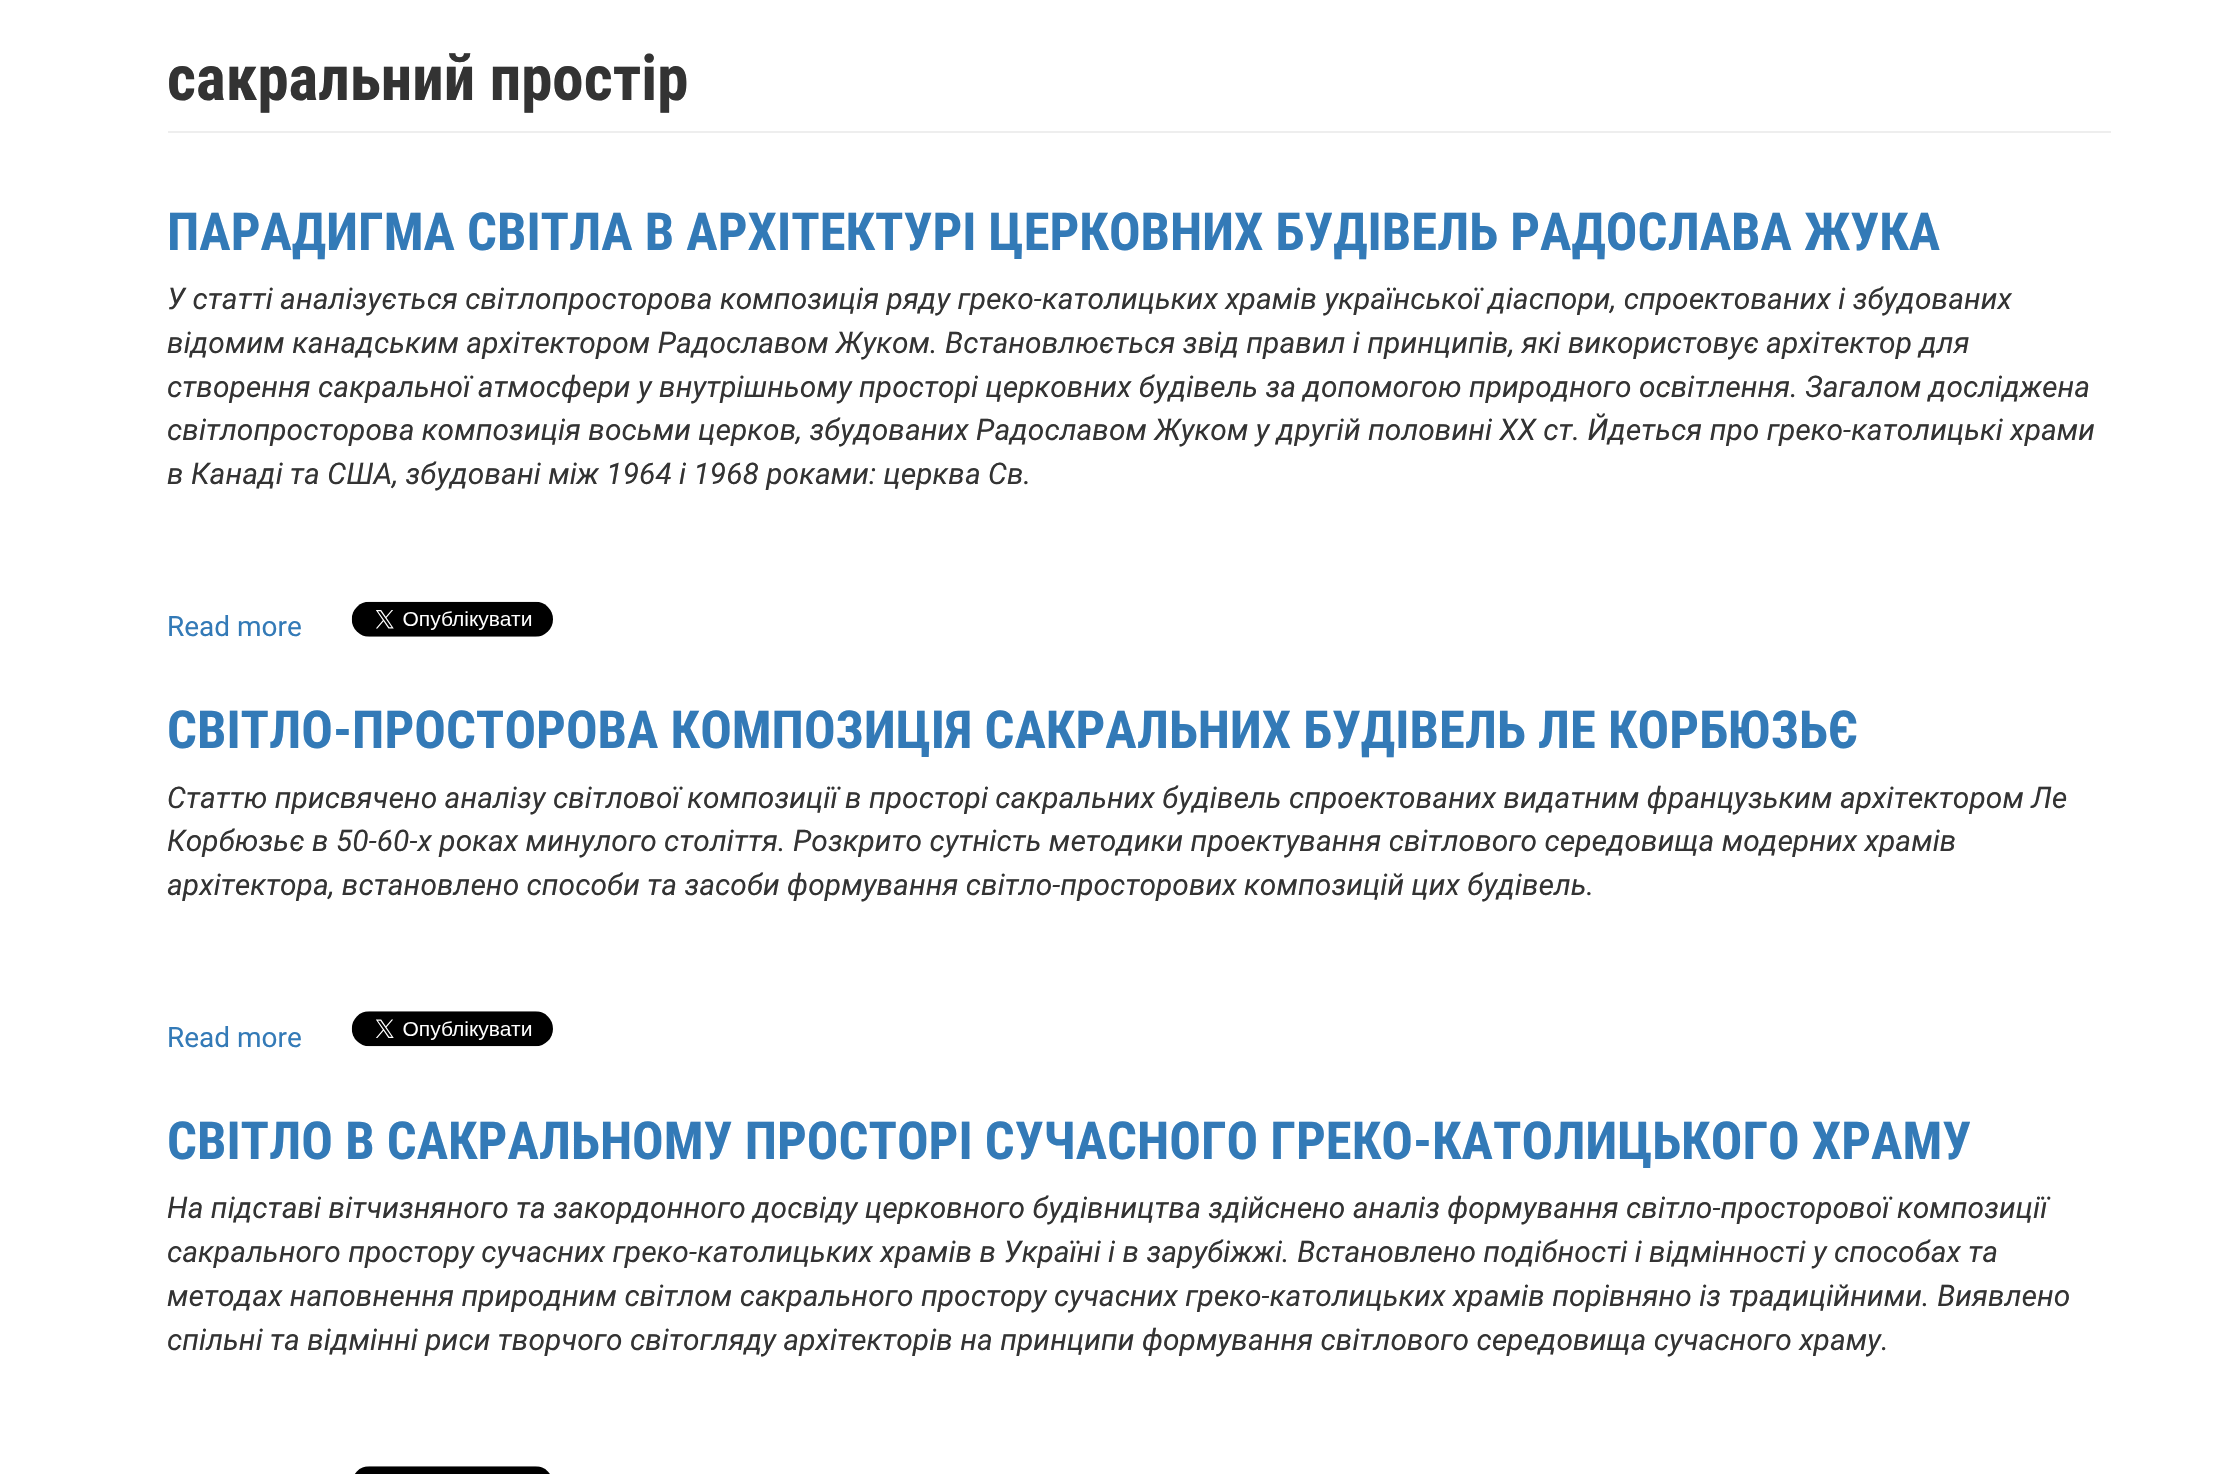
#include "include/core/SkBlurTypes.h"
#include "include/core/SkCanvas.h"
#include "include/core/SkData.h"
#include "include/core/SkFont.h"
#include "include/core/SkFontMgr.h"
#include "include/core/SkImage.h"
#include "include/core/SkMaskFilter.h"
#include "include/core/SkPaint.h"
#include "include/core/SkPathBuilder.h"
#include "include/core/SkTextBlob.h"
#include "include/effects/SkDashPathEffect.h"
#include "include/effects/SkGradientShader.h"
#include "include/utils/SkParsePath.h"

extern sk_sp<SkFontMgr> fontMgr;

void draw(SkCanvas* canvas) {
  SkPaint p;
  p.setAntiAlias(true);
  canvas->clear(SK_ColorWHITE);
  p.setColor(SkColorSetRGB(238, 238, 238));
  canvas->drawRect(SkRect::MakeLTRB(168, 131, 2111, 133), p);
  canvas->drawImageRect(SkImages::DeferredFromEncodedData(SkData::MakeFromFileName("images/1.png")), SkRect::MakeLTRB(351, 601, 553, 637), SkSamplingOptions());
  canvas->drawImageRect(SkImages::DeferredFromEncodedData(SkData::MakeFromFileName("images/2.png")), SkRect::MakeLTRB(351, 1011, 553, 1047), SkSamplingOptions());
  canvas->drawImageRect(SkImages::DeferredFromEncodedData(SkData::MakeFromFileName("images/3.png")), SkRect::MakeLTRB(355, 1466, 550, 1474), SkSamplingOptions());
  SkFont font1(fontMgr->matchFamilyStyle("Roboto Condensed", SkFontStyle::Bold()), 63);
  font1.setSubpixel(true);
  p.setColor(SkColorSetRGB(51, 51, 51));
  canvas->drawString("сакральний простір", 167, 100, font1, p);
  SkFont font2(fontMgr->matchFamilyStyle("Roboto Condensed", SkFontStyle::Bold()), 52.5f);
  font2.setSubpixel(true);
  p.setColor(SkColorSetRGB(51, 122, 183));
  canvas->drawString("ПАРАДИГМА СВІТЛА В АРХІТЕКТУРІ ЦЕРКОВНИХ БУДІВЕЛЬ РАДОСЛАВА ЖУКА", 167, 250, font2, p);
  SkFont font3(fontMgr->matchFamilyStyle("Roboto", SkFontStyle::Italic()), 29.75f);
  font3.setSubpixel(true);
  p.setColor(SkColorSetRGB(51, 51, 51));
  canvas->drawString("У статті аналізується світлопросторова композиція ряду греко-католицьких храмів української діаспори, спроектованих і збудованих", 167, 309, font3, p);
  canvas->drawString("відомим канадським архітектором Радославом Жуком. Встановлюється звід правил і принципів, які використовує архітектор для", 167, 353, font3, p);
  canvas->drawString("створення сакральної атмосфери у внутрішньому просторі церковних будівель за допомогою природного освітлення. Загалом досліджена", 167, 397, font3, p);
  canvas->drawString("світлопросторова композиція восьми церков, збудованих Радославом Жуком у другій половині ХХ ст. Йдеться про греко-католицькі храми", 167, 440, font3, p);
  canvas->drawString("в Канаді та США, збудовані між 1964 і 1968 роками: церква Св.", 167, 484, font3, p);
  SkFont font4(fontMgr->matchFamilyStyle("Roboto", SkFontStyle::Normal()), 28);
  font4.setSubpixel(true);
  p.setColor(SkColorSetRGB(51, 122, 183));
  canvas->drawString("Read more", 167, 636, font4, p);
  canvas->drawString("СВІТЛО-ПРОСТОРОВА КОМПОЗИЦІЯ САКРАЛЬНИХ БУДІВЕЛЬ ЛЕ КОРБЮЗЬЄ", 167, 748, font2, p);
  p.setColor(SkColorSetRGB(51, 51, 51));
  canvas->drawString("Статтю присвячено аналізу світлової композиції в просторі сакральних будівель спроектованих видатним французьким архітектором Ле", 167, 808, font3, p);
  canvas->drawString("Корбюзьє в 50-60-х роках минулого століття. Розкрито сутність методики проектування світлового середовища модерних храмів", 167, 851, font3, p);
  canvas->drawString("архітектора, встановлено способи та засоби формування світло-просторових композицій цих будівель.", 167, 895, font3, p);
  p.setColor(SkColorSetRGB(51, 122, 183));
  canvas->drawString("Read more", 167, 1047, font4, p);
  canvas->drawString("СВІТЛО В САКРАЛЬНОМУ ПРОСТОРІ СУЧАСНОГО ГРЕКО-КАТОЛИЦЬКОГО ХРАМУ", 167, 1159, font2, p);
  p.setColor(SkColorSetRGB(51, 51, 51));
  canvas->drawString("На підставі вітчизняного та закордонного досвіду церковного будівництва здійснено аналіз формування світло-просторової композиції", 167, 1218, font3, p);
  canvas->drawString("сакрального простору сучасних греко-католицьких храмів в Україні і в зарубіжжі. Встановлено подібності і відмінності у способах та", 167, 1262, font3, p);
  canvas->drawString("методах наповнення природним світлом сакрального простору сучасних греко-католицьких храмів порівняно із традиційними. Виявлено", 167, 1306, font3, p);
  canvas->drawString("спільні та відмінні риси творчого світогляду архітекторів на принципи формування світлового середовища сучасного храму.", 167, 1350, font3, p);
}
